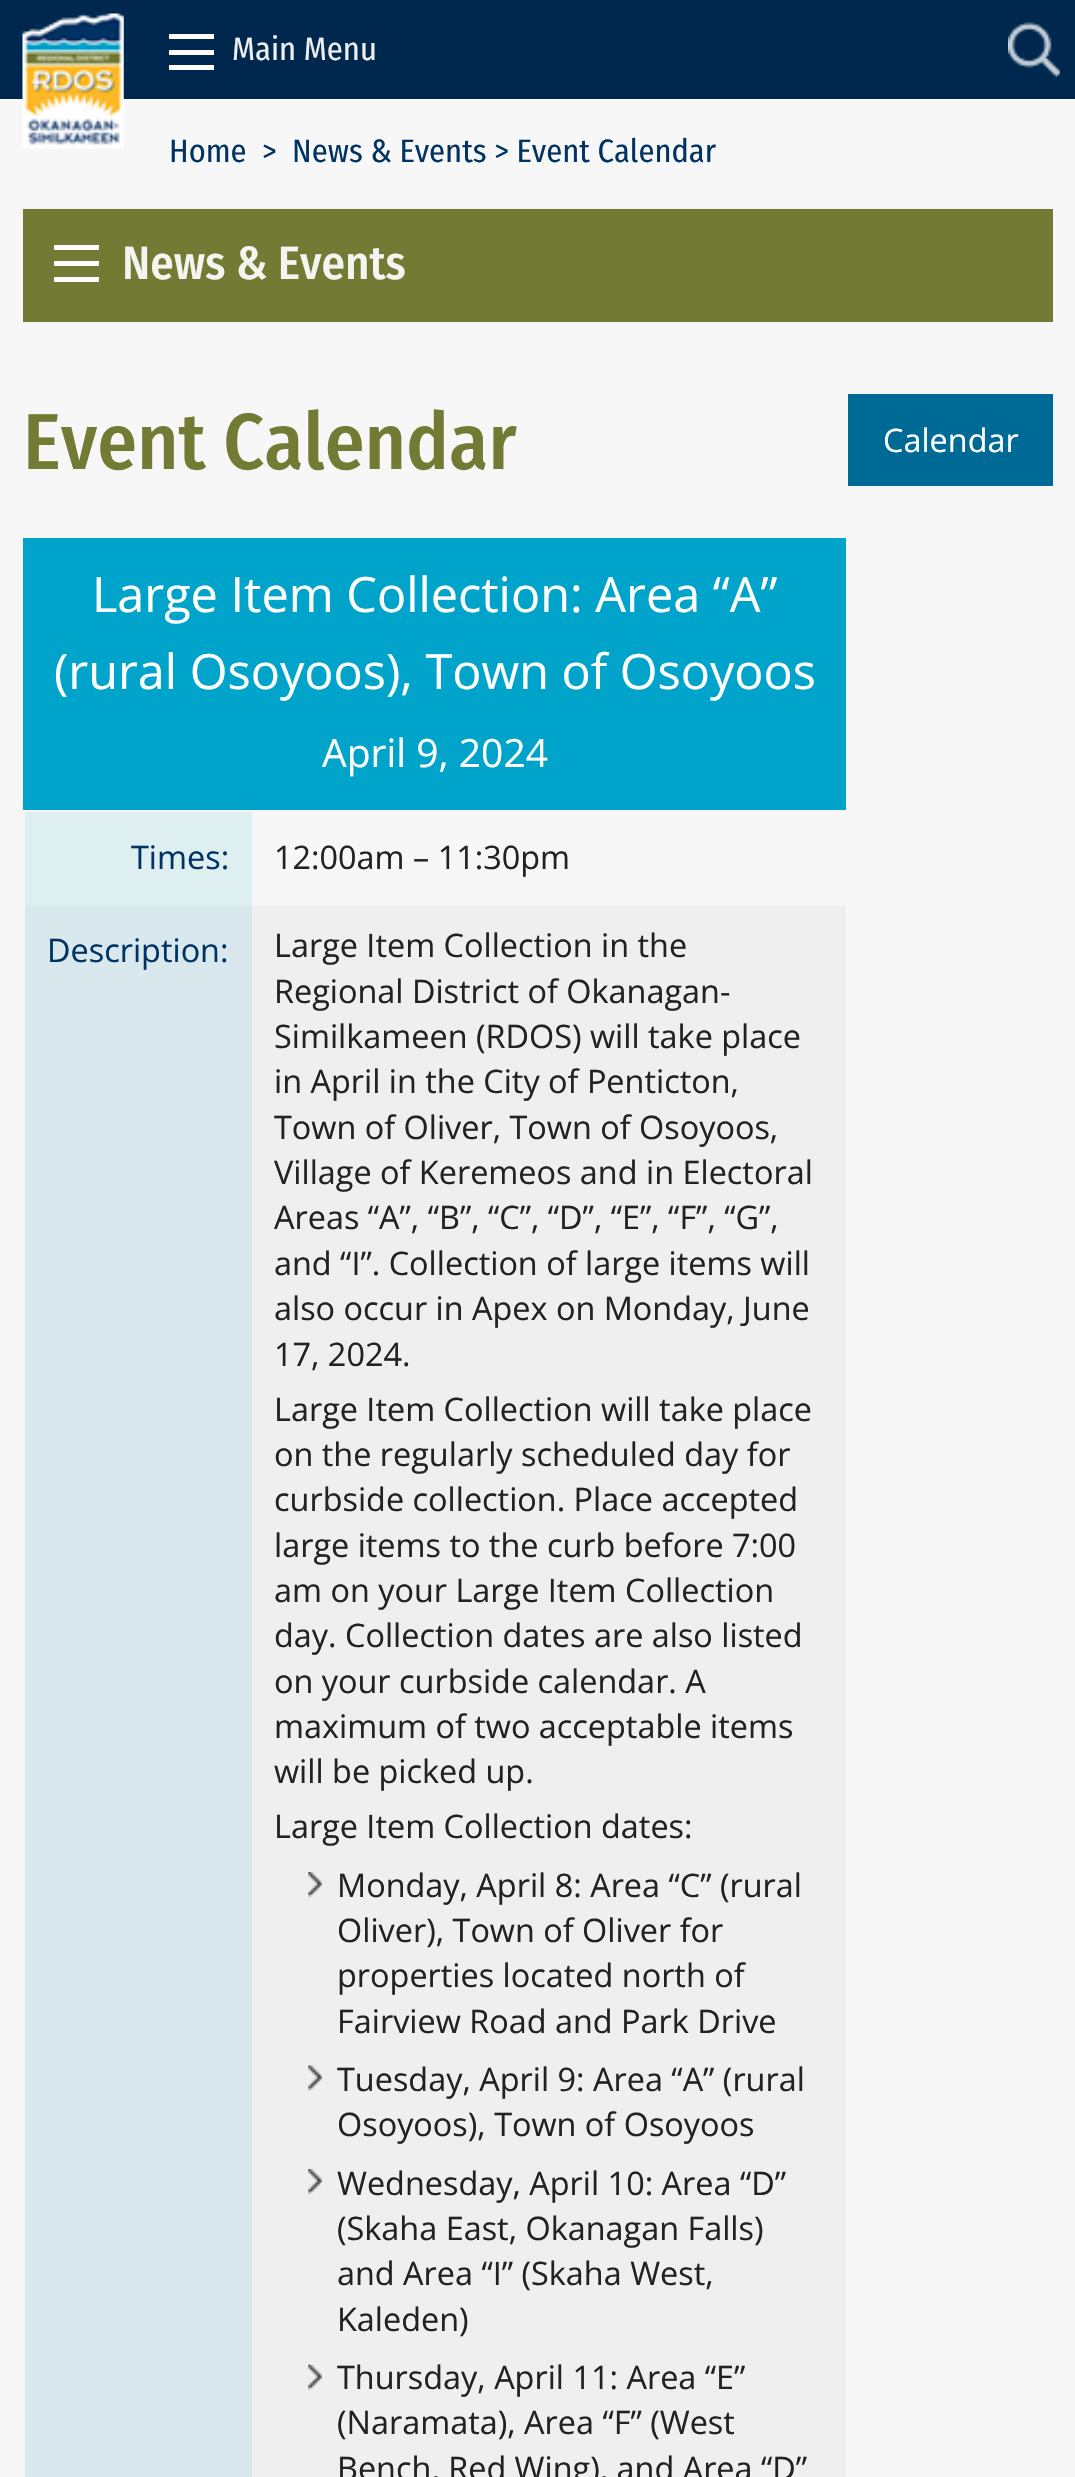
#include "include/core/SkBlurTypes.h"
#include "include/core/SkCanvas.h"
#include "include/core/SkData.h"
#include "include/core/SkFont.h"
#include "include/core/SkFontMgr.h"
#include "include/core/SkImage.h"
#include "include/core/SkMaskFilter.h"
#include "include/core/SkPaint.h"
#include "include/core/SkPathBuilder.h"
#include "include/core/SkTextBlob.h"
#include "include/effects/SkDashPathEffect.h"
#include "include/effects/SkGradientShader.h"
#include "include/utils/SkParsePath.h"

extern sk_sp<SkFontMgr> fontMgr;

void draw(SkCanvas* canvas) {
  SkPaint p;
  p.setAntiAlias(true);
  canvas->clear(SkColorSetRGB(0, 40, 79));
  p.setColor(SkColorSetRGB(247, 247, 247));
  canvas->drawRect(SkRect::MakeLTRB(0, 99, 1075, 2477), p);
  canvas->drawImageRect(SkImages::DeferredFromEncodedData(SkData::MakeFromFileName("images/1.png")), SkRect::MakeLTRB(22, 13, 124, 149), SkSamplingOptions());
  p.setColor(SkColorSetRGB(254, 254, 254));
  canvas->drawRect(SkRect::MakeLTRB(169, 65, 214, 70), p);
  canvas->drawRect(SkRect::MakeLTRB(169, 50, 214, 55), p);
  canvas->drawRect(SkRect::MakeLTRB(169, 34, 214, 39), p);
  canvas->drawImageRect(SkImages::DeferredFromEncodedData(SkData::MakeFromFileName("images/2.png")), SkRect::MakeLTRB(1008, 22, 1060, 77), SkSamplingOptions());
  p.setColor(SkColorSetRGB(114, 123, 52));
  canvas->drawRect(SkRect::MakeLTRB(23, 209, 1053, 322), p);
  p.setColor(SkColorSetRGB(254, 254, 254));
  canvas->drawRect(SkRect::MakeLTRB(54, 277, 99, 282), p);
  canvas->drawRect(SkRect::MakeLTRB(54, 261, 99, 266), p);
  canvas->drawRect(SkRect::MakeLTRB(54, 245, 99, 250), p);
  p.setColor(SkColorSetRGB(0, 106, 150));
  canvas->drawRect(SkRect::MakeLTRB(848, 394, 1053, 486), p);
  p.setColor(SkColorSetRGB(0, 163, 201));
  canvas->drawRect(SkRect::MakeLTRB(23, 538, 846, 810), p);
  p.setColor(SkColorSetRGB(222, 239, 242));
  canvas->drawRect(SkRect::MakeLTRB(25, 812, 252, 905), p);
  p.setColor(SkColorSetRGB(239, 239, 239));
  canvas->drawRect(SkRect::MakeLTRB(252, 905, 846, 2477), p);
  p.setColor(SkColorSetRGB(216, 232, 236));
  canvas->drawRect(SkRect::MakeLTRB(25, 905, 252, 2477), p);
  canvas->drawImageRect(SkImages::DeferredFromEncodedData(SkData::MakeFromFileName("images/3.png")), SkRect::MakeLTRB(308, 1872, 322, 1897), SkSamplingOptions());
  canvas->drawImageRect(SkImages::DeferredFromEncodedData(SkData::MakeFromFileName("images/4.png")), SkRect::MakeLTRB(308, 2065, 322, 2091), SkSamplingOptions());
  canvas->drawImageRect(SkImages::DeferredFromEncodedData(SkData::MakeFromFileName("images/3.png")), SkRect::MakeLTRB(308, 2169, 322, 2194), SkSamplingOptions());
  canvas->drawImageRect(SkImages::DeferredFromEncodedData(SkData::MakeFromFileName("images/5.png")), SkRect::MakeLTRB(308, 2364, 322, 2390), SkSamplingOptions());
  SkFont font1(fontMgr->matchFamilyStyle("Fira Sans Condensed", SkFontStyle::Normal()), 32.4f);
  font1.setSubpixel(true);
  p.setColor(SkColorSetRGB(238, 238, 238));
  canvas->drawString("Main Menu", 232, 60, font1, p);
  p.setColor(SkColorSetRGB(0, 50, 99));
  canvas->drawString("Home", 169, 162, font1, p);
  canvas->drawString(">", 262, 162, font1, p);
  canvas->drawString("News & Events > Event Calendar", 292, 162, font1, p);
  SkFont font2(fontMgr->matchFamilyStyle("Fira Sans Condensed", SkFontStyle(500, SkFontStyle::kNormal_Width, SkFontStyle::kUpright_Slant)), 46.75f);
  font2.setSubpixel(true);
  p.setColor(SkColorSetRGB(244, 244, 240));
  canvas->drawString("News & Events", 122, 279, font2, p);
  SkFont font3(fontMgr->matchFamilyStyle("Fira Sans Condensed", SkFontStyle(500, SkFontStyle::kNormal_Width, SkFontStyle::kUpright_Slant)), 79.25f);
  font3.setSubpixel(true);
  p.setColor(SkColorSetRGB(114, 123, 52));
  canvas->drawString("Event Calendar", 23, 469, font3, p);
  SkFont font4(fontMgr->matchFamilyStyle("Open Sans", SkFontStyle::Normal()), 32.4f);
  font4.setSubpixel(true);
  p.setColor(SK_ColorWHITE);
  canvas->drawString("Calendar", 883, 452, font4, p);
  SkFont font5(fontMgr->matchFamilyStyle("Open Sans", SkFontStyle::Normal()), 48.6f);
  font5.setSubpixel(true);
  canvas->drawString("Large Item Collection: Area “A”", 92, 612, font5, p);
  canvas->drawString("(rural Osoyoos), Town of Osoyoos", 54, 689, font5, p);
  SkFont font6(fontMgr->matchFamilyStyle("Open Sans", SkFontStyle::Normal()), 39);
  font6.setSubpixel(true);
  canvas->drawString("April 9, 2024", 322, 767, font6, p);
  p.setColor(SkColorSetRGB(0, 50, 99));
  canvas->drawString("Times:", 131, 869, font4, p);
  p.setColor(SkColorSetRGB(34, 34, 34));
  canvas->drawString("12:00am – 11:30pm", 274, 869, font4, p);
  p.setColor(SkColorSetRGB(0, 50, 99));
  canvas->drawString("Description:", 47, 962, font4, p);
  p.setColor(SkColorSetRGB(34, 34, 34));
  canvas->drawString("Large Item Collection in the", 274, 957, font4, p);
  canvas->drawString("Regional District of Okanagan-", 274, 1003, font4, p);
  canvas->drawString("Similkameen (RDOS) will take place", 274, 1048, font4, p);
  canvas->drawString("in April in the City of Penticton,", 274, 1093, font4, p);
  canvas->drawString("Town of Oliver, Town of Osoyoos,", 274, 1139, font4, p);
  canvas->drawString("Village of Keremeos and in Electoral", 274, 1184, font4, p);
  canvas->drawString("Areas “A”, “B”, “C”, “D”, “E”, “F”, “G”,", 274, 1229, font4, p);
  canvas->drawString("and “I”. Collection of large items will", 274, 1275, font4, p);
  canvas->drawString("also occur in Apex on Monday, June", 274, 1320, font4, p);
  canvas->drawString("17, 2024.", 274, 1366, font4, p);
  canvas->drawString("Large Item Collection will take place", 274, 1421, font4, p);
  canvas->drawString("on the regularly scheduled day for", 274, 1466, font4, p);
  canvas->drawString("curbside collection. Place accepted", 274, 1511, font4, p);
  canvas->drawString("large items to the curb before 7:00", 274, 1557, font4, p);
  canvas->drawString("am on your Large Item Collection", 274, 1602, font4, p);
  canvas->drawString("day. Collection dates are also listed", 274, 1647, font4, p);
  canvas->drawString("on your curbside calendar. A", 274, 1693, font4, p);
  canvas->drawString("maximum of two acceptable items", 274, 1738, font4, p);
  canvas->drawString("will be picked up.", 274, 1783, font4, p);
  canvas->drawString("Large Item Collection dates:", 274, 1838, font4, p);
  canvas->drawString("Monday, April 8: Area “C” (rural", 337, 1897, font4, p);
  canvas->drawString("Oliver), Town of Oliver for", 337, 1942, font4, p);
  canvas->drawString("properties located north of", 337, 1987, font4, p);
  canvas->drawString("Fairview Road and Park Drive", 337, 2033, font4, p);
  canvas->drawString("Tuesday, April 9: Area “A” (rural", 337, 2091, font4, p);
  canvas->drawString("Osoyoos), Town of Osoyoos", 337, 2136, font4, p);
  canvas->drawString("Wednesday, April 10: Area “D”", 337, 2195, font4, p);
  canvas->drawString("(Skaha East, Okanagan Falls)", 337, 2240, font4, p);
  canvas->drawString("and Area “I” (Skaha West,", 337, 2285, font4, p);
  canvas->drawString("Kaleden)", 337, 2331, font4, p);
  canvas->drawString("Thursday, April 11: Area “E”", 337, 2389, font4, p);
  canvas->drawString("(Naramata), Area “F” (West", 337, 2434, font4, p);
  canvas->drawString("Bench, Red Wing), and Area “D”", 337, 2480, font4, p);
}
